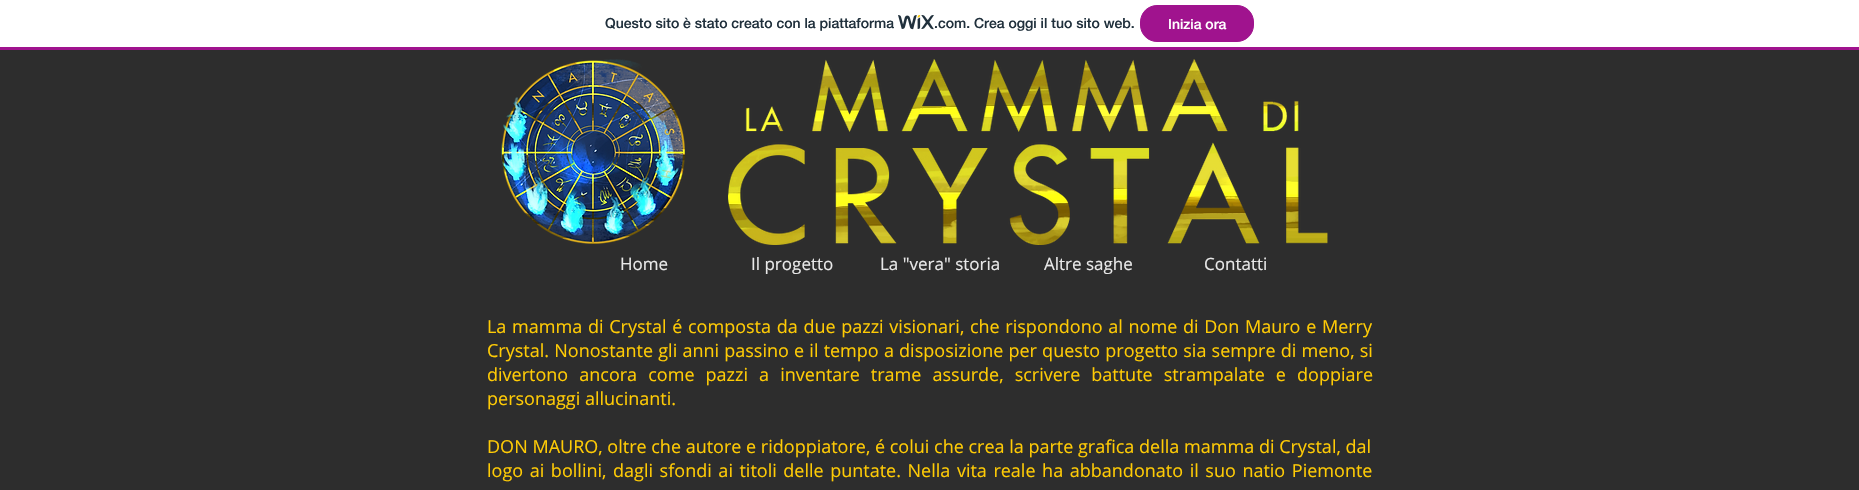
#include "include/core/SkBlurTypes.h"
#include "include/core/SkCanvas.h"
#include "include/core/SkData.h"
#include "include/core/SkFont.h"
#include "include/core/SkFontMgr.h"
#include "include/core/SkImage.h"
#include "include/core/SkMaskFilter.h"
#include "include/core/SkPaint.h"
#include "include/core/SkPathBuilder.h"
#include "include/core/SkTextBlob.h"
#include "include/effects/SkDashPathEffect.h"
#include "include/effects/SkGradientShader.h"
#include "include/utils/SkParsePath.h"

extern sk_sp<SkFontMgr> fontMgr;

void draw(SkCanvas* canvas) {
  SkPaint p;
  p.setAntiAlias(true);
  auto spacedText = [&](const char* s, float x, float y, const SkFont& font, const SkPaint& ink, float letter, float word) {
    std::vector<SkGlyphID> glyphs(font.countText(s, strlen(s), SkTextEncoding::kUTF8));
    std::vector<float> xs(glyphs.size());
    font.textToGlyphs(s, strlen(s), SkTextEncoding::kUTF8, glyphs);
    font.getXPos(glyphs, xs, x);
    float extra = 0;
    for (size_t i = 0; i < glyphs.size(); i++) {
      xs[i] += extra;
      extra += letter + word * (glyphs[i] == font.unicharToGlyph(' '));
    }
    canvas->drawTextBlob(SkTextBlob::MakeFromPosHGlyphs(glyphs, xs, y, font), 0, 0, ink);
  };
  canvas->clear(SK_ColorWHITE);
  p.setColor(SkColorSetRGB(160, 19, 142));
  canvas->drawRect(SkRect::MakeLTRB(0, 47, 1859, 50), p);
  canvas->drawImageRect(SkImages::DeferredFromEncodedData(SkData::MakeFromFileName("images/1.png")), SkRect::MakeLTRB(898, 15, 934, 30), SkSamplingOptions());
  canvas->drawRoundRect(SkRect::MakeLTRB(1140.5f, 5.5f, 1253.5f, 41.5f), 16.5f, 16.5f, p);
  p.setStyle(SkPaint::kStroke_Style);
  p.setStrokeWidth(1);
  canvas->drawRoundRect(SkRect::MakeLTRB(1140.5f, 5.5f, 1253.5f, 41.5f), 16.5f, 16.5f, p);
  p.setStyle(SkPaint::kFill_Style);
  p.setColor(SkColorSetRGB(45, 45, 45));
  canvas->drawRect(SkRect::MakeLTRB(0, 50, 1859, 490), p);
  canvas->drawImageRect(SkImages::DeferredFromEncodedData(SkData::MakeFromFileName("images/2.png")), SkRect::MakeLTRB(501, 59, 685, 244), SkSamplingOptions());
  canvas->drawImageRect(SkImages::DeferredFromEncodedData(SkData::MakeFromFileName("images/3.png")), SkRect::MakeLTRB(728, 59, 1328, 245), SkSamplingOptions());
  SkFont font1(fontMgr->matchFamilyStyle("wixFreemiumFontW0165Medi", SkFontStyle(500, SkFontStyle::kNormal_Width, SkFontStyle::kUpright_Slant)), 14);
  font1.setSubpixel(true);
  p.setColor(SkColorSetRGB(32, 48, 60));
  canvas->drawString("Questo sito è stato creato con la piattaforma", 605, 28, font1, p);
  canvas->drawString(".com. Crea oggi il tuo sito web.", 934, 28, font1, p);
  p.setColor(SK_ColorWHITE);
  canvas->drawString("Inizia ora", 1168, 29, font1, p);
  SkFont font2(fontMgr->matchFamilyStyle("Open Sans", SkFontStyle::Normal()), 17);
  font2.setSubpixel(true);
  p.setColor(SkColorSetRGB(232, 232, 232));
  canvas->drawString("Home", 620, 270, font2, p);
  canvas->drawString("Il progetto", 751, 270, font2, p);
  canvas->drawString("La \"vera\" storia", 880, 270, font2, p);
  canvas->drawString("Altre saghe", 1044, 270, font2, p);
  canvas->drawString("Contatti", 1204, 270, font2, p);
  SkFont font3(fontMgr->matchFamilyStyle("Open Sans", SkFontStyle::Normal()), 18);
  font3.setSubpixel(true);
  p.setColor(SkColorSetRGB(255, 203, 5));
  spacedText("La mamma di Crystal é composta da due pazzi visionari, che rispondono al nome di Don Mauro e Merry", 487, 333, font3, p, 0, 1);
  spacedText("Crystal. Nonostante gli anni passino e il tempo a disposizione per questo progetto sia sempre di meno, si", 487, 357, font3, p, 0, 0.5f);
  spacedText("divertono ancora come pazzi a inventare trame assurde, scrivere battute strampalate e doppiare", 487, 381, font3, p, 0, 6.4f);
  canvas->drawString("personaggi allucinanti.", 487, 405, font3, p);
  canvas->drawString("DON MAURO, oltre che autore e ridoppiatore, é colui che crea la parte grafica della mamma di Crystal, dal", 487, 453, font3, p);
  spacedText("logo ai bollini, dagli sfondi ai titoli delle puntate. Nella vita reale ha abbandonato il suo natio Piemonte", 487, 477, font3, p, 0, 1.9f);
}
